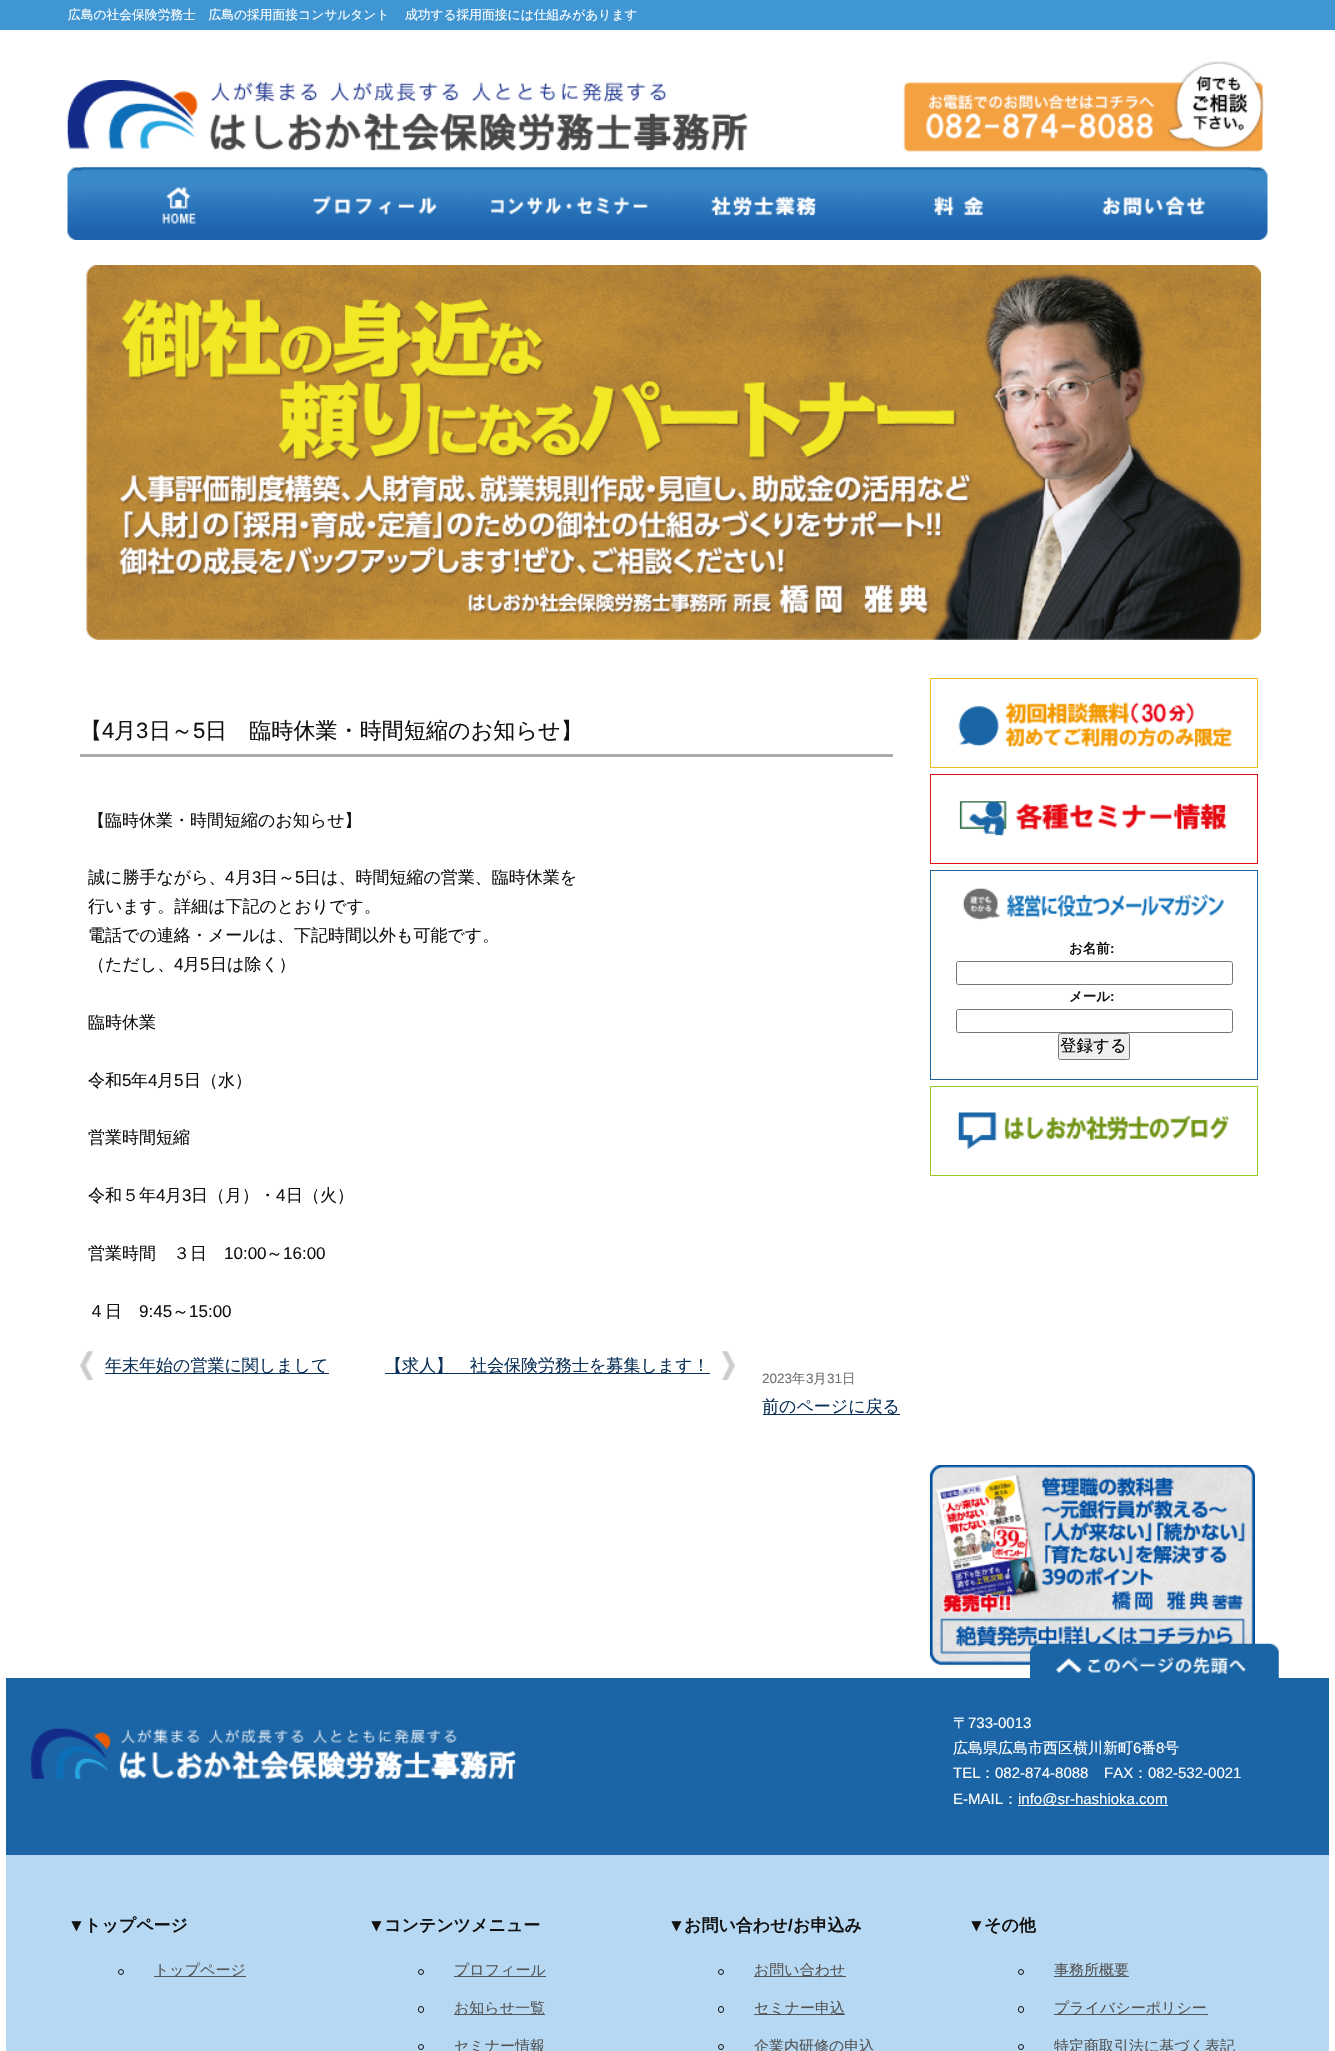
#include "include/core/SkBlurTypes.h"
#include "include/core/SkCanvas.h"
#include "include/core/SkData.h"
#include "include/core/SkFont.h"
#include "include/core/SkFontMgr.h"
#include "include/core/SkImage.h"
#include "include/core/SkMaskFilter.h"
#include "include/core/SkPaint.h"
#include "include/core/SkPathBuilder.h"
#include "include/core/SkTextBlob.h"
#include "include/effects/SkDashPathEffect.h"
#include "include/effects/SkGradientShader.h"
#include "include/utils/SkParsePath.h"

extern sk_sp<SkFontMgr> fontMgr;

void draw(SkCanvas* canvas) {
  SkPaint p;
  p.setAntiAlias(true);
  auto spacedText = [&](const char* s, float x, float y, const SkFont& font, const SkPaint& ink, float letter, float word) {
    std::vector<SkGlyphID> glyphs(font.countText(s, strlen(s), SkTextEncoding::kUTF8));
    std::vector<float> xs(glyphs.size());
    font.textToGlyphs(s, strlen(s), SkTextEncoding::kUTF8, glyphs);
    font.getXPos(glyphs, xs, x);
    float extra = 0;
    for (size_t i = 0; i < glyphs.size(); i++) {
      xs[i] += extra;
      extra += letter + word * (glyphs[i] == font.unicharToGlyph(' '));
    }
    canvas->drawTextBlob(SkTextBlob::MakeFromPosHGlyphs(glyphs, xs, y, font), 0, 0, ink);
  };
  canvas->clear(SK_ColorWHITE);
  p.setColor(SkColorSetRGB(63, 150, 211));
  canvas->drawRect(SkRect::MakeLTRB(0, 0, 1335, 30), p);
  canvas->drawImageRect(SkImages::DeferredFromEncodedData(SkData::MakeFromFileName("images/1.png")), SkRect::MakeLTRB(67, 80, 748, 152), SkSamplingOptions());
  canvas->drawImageRect(SkImages::DeferredFromEncodedData(SkData::MakeFromFileName("images/2.png")), SkRect::MakeLTRB(903, 61, 1264, 152), SkSamplingOptions());
  canvas->drawImageRect(SkImages::DeferredFromEncodedData(SkData::MakeFromFileName("images/3.png")), SkRect::MakeLTRB(67, 167, 1268, 240), SkSamplingOptions());
  canvas->drawImageRect(SkImages::DeferredFromEncodedData(SkData::MakeFromFileName("images/4.png")), SkRect::MakeLTRB(81, 167, 277, 224), SkSamplingOptions());
  canvas->drawImageRect(SkImages::DeferredFromEncodedData(SkData::MakeFromFileName("images/5.png")), SkRect::MakeLTRB(276, 167, 472, 216), SkSamplingOptions());
  canvas->drawImageRect(SkImages::DeferredFromEncodedData(SkData::MakeFromFileName("images/6.png")), SkRect::MakeLTRB(471, 167, 667, 216), SkSamplingOptions());
  canvas->drawImageRect(SkImages::DeferredFromEncodedData(SkData::MakeFromFileName("images/7.png")), SkRect::MakeLTRB(666, 167, 862, 217), SkSamplingOptions());
  canvas->drawImageRect(SkImages::DeferredFromEncodedData(SkData::MakeFromFileName("images/8.png")), SkRect::MakeLTRB(861, 167, 1057, 216), SkSamplingOptions());
  canvas->drawImageRect(SkImages::DeferredFromEncodedData(SkData::MakeFromFileName("images/9.png")), SkRect::MakeLTRB(1056, 167, 1252, 216), SkSamplingOptions());
  canvas->drawImageRect(SkImages::DeferredFromEncodedData(SkData::MakeFromFileName("images/10.png")), SkRect::MakeLTRB(86, 265, 1262, 640), SkSamplingOptions());
  p.setColor(SkColorSetRGB(170, 170, 170));
  canvas->drawRect(SkRect::MakeLTRB(80, 754, 893, 757), p);
  p.setColor(SkColorSetRGB(12, 49, 88));
  canvas->drawRect(SkRect::MakeLTRB(763, 1414, 900, 1415), p);
  canvas->drawImageRect(SkImages::DeferredFromEncodedData(SkData::MakeFromFileName("images/11.png")), SkRect::MakeLTRB(80, 1351, 94, 1380), SkSamplingOptions());
  canvas->drawRect(SkRect::MakeLTRB(105, 1373, 329, 1374), p);
  canvas->drawImageRect(SkImages::DeferredFromEncodedData(SkData::MakeFromFileName("images/12.png")), SkRect::MakeLTRB(721, 1351, 735, 1380), SkSamplingOptions());
  canvas->drawRect(SkRect::MakeLTRB(385, 1373, 710, 1374), p);
  canvas->drawImageRect(SkImages::DeferredFromEncodedData(SkData::MakeFromFileName("images/13.png")), SkRect::MakeLTRB(958, 702, 1232, 748), SkSamplingOptions());
  p.setStyle(SkPaint::kStroke_Style);
  p.setStrokeWidth(1);
  p.setColor(SkColorSetRGB(240, 190, 26));
  canvas->drawRect(SkRect::MakeLTRB(930.5f, 678.5f, 1257.5f, 767.5f), p);
  canvas->drawImageRect(SkImages::DeferredFromEncodedData(SkData::MakeFromFileName("images/14.png")), SkRect::MakeLTRB(959, 801, 1227, 836), SkSamplingOptions());
  p.setColor(SkColorSetRGB(229, 14, 17));
  canvas->drawRect(SkRect::MakeLTRB(930.5f, 774.5f, 1257.5f, 863.5f), p);
  p.setColor(SkColorSetRGB(33, 100, 155));
  canvas->drawRect(SkRect::MakeLTRB(930.5f, 870.5f, 1257.5f, 1079.5f), p);
  canvas->drawImageRect(SkImages::DeferredFromEncodedData(SkData::MakeFromFileName("images/15.png")), SkRect::MakeLTRB(963, 888, 1224, 921), SkSamplingOptions());
  p.setColor(SkColorSetRGB(118, 118, 118));
  canvas->drawRoundRect(SkRect::MakeLTRB(956.5f, 961.5f, 1232.5f, 984.5f), 2, 2, p);
  canvas->drawRoundRect(SkRect::MakeLTRB(956.5f, 1009.5f, 1232.5f, 1032.5f), 2, 2, p);
  p.setStyle(SkPaint::kFill_Style);
  p.setColor(SkColorSetRGB(239, 239, 239));
  canvas->drawRoundRect(SkRect::MakeLTRB(1058.5f, 1033.5f, 1129.5f, 1059.5f), 2, 2, p);
  p.setStyle(SkPaint::kStroke_Style);
  p.setColor(SkColorSetRGB(118, 118, 118));
  canvas->drawRoundRect(SkRect::MakeLTRB(1058.5f, 1033.5f, 1129.5f, 1059.5f), 2, 2, p);
  canvas->drawImageRect(SkImages::DeferredFromEncodedData(SkData::MakeFromFileName("images/16.png")), SkRect::MakeLTRB(958, 1112, 1229, 1149), SkSamplingOptions());
  p.setColor(SkColorSetRGB(152, 199, 38));
  canvas->drawRect(SkRect::MakeLTRB(930.5f, 1086.5f, 1257.5f, 1175.5f), p);
  canvas->drawImageRect(SkImages::DeferredFromEncodedData(SkData::MakeFromFileName("images/17.png")), SkRect::MakeLTRB(930, 1465, 1255, 1665), SkSamplingOptions());
  canvas->drawImageRect(SkImages::DeferredFromEncodedData(SkData::MakeFromFileName("images/18.png")), SkRect::MakeLTRB(1030, 1643, 1279, 1678), SkSamplingOptions());
  p.setStyle(SkPaint::kFill_Style);
  p.setColor(SkColorSetRGB(27, 101, 166));
  canvas->drawRect(SkRect::MakeLTRB(6, 1678, 1329, 1855), p);
  canvas->drawImageRect(SkImages::DeferredFromEncodedData(SkData::MakeFromFileName("images/19.png")), SkRect::MakeLTRB(31, 1728, 517, 1780), SkSamplingOptions());
  p.setColor(SK_ColorWHITE);
  canvas->drawRect(SkRect::MakeLTRB(1018, 1805, 1168, 1806), p);
  p.setColor(SkColorSetRGB(182, 216, 242));
  canvas->drawRect(SkRect::MakeLTRB(6, 1855, 1329, 2051), p);
  p.setStyle(SkPaint::kStroke_Style);
  p.setColor(SkColorSetRGB(17, 17, 17));
  canvas->drawCircle(121, 1972, 2.5f, p);
  p.setStyle(SkPaint::kFill_Style);
  p.setColor(SkColorSetRGB(85, 85, 85));
  canvas->drawRect(SkRect::MakeLTRB(154, 1976, 246, 1977), p);
  p.setStyle(SkPaint::kStroke_Style);
  p.setColor(SkColorSetRGB(17, 17, 17));
  canvas->drawCircle(421, 1972, 2.5f, p);
  p.setStyle(SkPaint::kFill_Style);
  p.setColor(SkColorSetRGB(85, 85, 85));
  canvas->drawRect(SkRect::MakeLTRB(454, 1976, 546, 1977), p);
  p.setStyle(SkPaint::kStroke_Style);
  p.setColor(SkColorSetRGB(17, 17, 17));
  canvas->drawRoundRect(SkRect::MakeLTRB(418.5f, 2006.5f, 423.5f, 2012.5f), 2.5f, 2.5f, p);
  p.setStyle(SkPaint::kFill_Style);
  p.setColor(SkColorSetRGB(85, 85, 85));
  canvas->drawRect(SkRect::MakeLTRB(454, 2014, 545, 2015), p);
  p.setStyle(SkPaint::kStroke_Style);
  p.setColor(SkColorSetRGB(17, 17, 17));
  canvas->drawCircle(421, 2047, 2.5f, p);
  canvas->drawCircle(721, 1972, 2.5f, p);
  p.setStyle(SkPaint::kFill_Style);
  p.setColor(SkColorSetRGB(85, 85, 85));
  canvas->drawRect(SkRect::MakeLTRB(754, 1976, 846, 1977), p);
  p.setStyle(SkPaint::kStroke_Style);
  p.setColor(SkColorSetRGB(17, 17, 17));
  canvas->drawRoundRect(SkRect::MakeLTRB(718.5f, 2006.5f, 723.5f, 2012.5f), 2.5f, 2.5f, p);
  p.setStyle(SkPaint::kFill_Style);
  p.setColor(SkColorSetRGB(85, 85, 85));
  canvas->drawRect(SkRect::MakeLTRB(754, 2014, 845, 2015), p);
  p.setStyle(SkPaint::kStroke_Style);
  p.setColor(SkColorSetRGB(17, 17, 17));
  canvas->drawCircle(721, 2047, 2.5f, p);
  canvas->drawCircle(1021, 1972, 2.5f, p);
  p.setStyle(SkPaint::kFill_Style);
  p.setColor(SkColorSetRGB(85, 85, 85));
  canvas->drawRect(SkRect::MakeLTRB(1054, 1976, 1129, 1977), p);
  p.setStyle(SkPaint::kStroke_Style);
  p.setColor(SkColorSetRGB(17, 17, 17));
  canvas->drawRoundRect(SkRect::MakeLTRB(1018.5f, 2006.5f, 1023.5f, 2012.5f), 2.5f, 2.5f, p);
  p.setStyle(SkPaint::kFill_Style);
  p.setColor(SkColorSetRGB(85, 85, 85));
  canvas->drawRect(SkRect::MakeLTRB(1054, 2014, 1208, 2015), p);
  p.setStyle(SkPaint::kStroke_Style);
  p.setColor(SkColorSetRGB(17, 17, 17));
  canvas->drawCircle(1021, 2047, 2.5f, p);
  SkFont font1(fontMgr->matchFamilyStyle("WenQuanYi Zen Hei", SkFontStyle(500, SkFontStyle::kNormal_Width, SkFontStyle::kUpright_Slant)), 12.75f);
  font1.setSubpixel(true);
  p.setStyle(SkPaint::kFill_Style);
  p.setColor(SK_ColorWHITE);
  spacedText("広島の社会保険労務士　広島の採用面接コンサルタント 　成功する採用面接には仕組みがあります", 68, 19, font1, p, 0, -1);
  SkFont font2(fontMgr->matchFamilyStyle("WenQuanYi Zen Hei", SkFontStyle(500, SkFontStyle::kNormal_Width, SkFontStyle::kUpright_Slant)), 22.1f);
  font2.setSubpixel(true);
  p.setColor(SkColorSetRGB(17, 17, 17));
  canvas->drawString("【", 80, 738, font2, p);
  SkFont font3(fontMgr->matchFamilyStyle("Liberation Sans", SkFontStyle::Normal()), 22.1f);
  font3.setSubpixel(true);
  canvas->drawString("4", 102, 738, font3, p);
  canvas->drawString("月", 114, 738, font2, p);
  canvas->drawString("3", 136, 738, font3, p);
  canvas->drawString("日～", 149, 738, font2, p);
  canvas->drawString("5", 193, 738, font3, p);
  canvas->drawString("日　臨時休業・時間短縮のお知らせ】", 205, 738, font2, p);
  SkFont font4(fontMgr->matchFamilyStyle("WenQuanYi Zen Hei", SkFontStyle(500, SkFontStyle::kNormal_Width, SkFontStyle::kUpright_Slant)), 17);
  font4.setSubpixel(true);
  canvas->drawString("【臨時休業・時間短縮のお知らせ】", 88, 826, font4, p);
  canvas->drawString("誠に勝手ながら、", 88, 883, font4, p);
  SkFont font5(fontMgr->matchFamilyStyle("Liberation Sans", SkFontStyle::Normal()), 17);
  font5.setSubpixel(true);
  canvas->drawString("4", 225, 883, font5, p);
  canvas->drawString("月", 235, 883, font4, p);
  canvas->drawString("3", 252, 883, font5, p);
  canvas->drawString("日～", 261, 883, font4, p);
  canvas->drawString("5", 295, 883, font5, p);
  canvas->drawString("日は、時間短縮の営業、臨時休業を", 304, 883, font4, p);
  canvas->drawString("行います。詳細は下記のとおりです。", 88, 912, font4, p);
  canvas->drawString("電話での連絡・メールは、下記時間以外も可能です。", 88, 941, font4, p);
  canvas->drawString("（ただし、", 88, 970, font4, p);
  canvas->drawString("4", 174, 970, font5, p);
  canvas->drawString("月", 183, 970, font4, p);
  canvas->drawString("5", 200, 970, font5, p);
  canvas->drawString("日は除く）", 210, 970, font4, p);
  canvas->drawString("臨時休業", 88, 1028, font4, p);
  canvas->drawString("令和", 88, 1086, font4, p);
  canvas->drawString("5", 122, 1086, font5, p);
  canvas->drawString("年", 131, 1086, font4, p);
  canvas->drawString("4", 148, 1086, font5, p);
  canvas->drawString("月", 157, 1086, font4, p);
  canvas->drawString("5", 174, 1086, font5, p);
  canvas->drawString("日（水）", 184, 1086, font4, p);
  canvas->drawString("営業時間短縮", 88, 1143, font4, p);
  canvas->drawString("令和５年", 88, 1201, font4, p);
  canvas->drawString("4", 156, 1201, font5, p);
  canvas->drawString("月", 165, 1201, font4, p);
  canvas->drawString("3", 182, 1201, font5, p);
  canvas->drawString("日（月）・", 191, 1201, font4, p);
  canvas->drawString("4", 276, 1201, font5, p);
  canvas->drawString("日（火）", 286, 1201, font4, p);
  canvas->drawString("営業時間　３日", 88, 1259, font4, p);
  canvas->drawString("10:00", 224, 1259, font5, p);
  canvas->drawString("～", 266, 1259, font4, p);
  canvas->drawString("16:00", 283, 1259, font5, p);
  canvas->drawString("４日", 88, 1317, font4, p);
  canvas->drawString("9:45", 139, 1317, font5, p);
  canvas->drawString("～", 172, 1317, font4, p);
  canvas->drawString("15:00", 189, 1317, font5, p);
  SkFont font6(fontMgr->matchFamilyStyle("Liberation Sans", SkFontStyle::Normal()), 13.5f);
  font6.setSubpixel(true);
  p.setColor(SkColorSetRGB(112, 112, 112));
  canvas->drawString("2023", 762, 1383, font6, p);
  SkFont font7(fontMgr->matchFamilyStyle("WenQuanYi Zen Hei", SkFontStyle(500, SkFontStyle::kNormal_Width, SkFontStyle::kUpright_Slant)), 13.5f);
  font7.setSubpixel(true);
  canvas->drawString("年", 792, 1383, font7, p);
  canvas->drawString("3", 806, 1383, font6, p);
  canvas->drawString("月", 813, 1383, font7, p);
  canvas->drawString("31", 827, 1383, font6, p);
  canvas->drawString("日", 842, 1383, font7, p);
  p.setColor(SkColorSetRGB(12, 49, 88));
  canvas->drawString("前のページに戻る", 762, 1412, font4, p);
  canvas->drawString("年末年始の営業に関しまして", 105, 1371, font4, p);
  canvas->drawString("【求人】　社会保険労務士を募集します！", 385, 1371, font4, p);
  SkFont font8(fontMgr->matchFamilyStyle("WenQuanYi Zen Hei", SkFontStyle::Bold()), 13.5f);
  font8.setSubpixel(true);
  p.setColor(SkColorSetRGB(17, 17, 17));
  canvas->drawString("お名前", 1069, 953, font8, p);
  SkFont font9(fontMgr->matchFamilyStyle("Liberation Sans", SkFontStyle::Bold()), 13.5f);
  font9.setSubpixel(true);
  canvas->drawString(":", 1110, 953, font9, p);
  canvas->drawString("メール", 1069, 1001, font8, p);
  canvas->drawString(":", 1110, 1001, font9, p);
  SkFont font10(fontMgr->matchFamilyStyle("WenQuanYi Zen Hei", SkFontStyle(500, SkFontStyle::kNormal_Width, SkFontStyle::kUpright_Slant)), 16.5f);
  font10.setSubpixel(true);
  p.setColor(SK_ColorBLACK);
  canvas->drawString("登録する", 1060, 1051, font10, p);
  SkFont font11(fontMgr->matchFamilyStyle("WenQuanYi Zen Hei", SkFontStyle(500, SkFontStyle::kNormal_Width, SkFontStyle::kUpright_Slant)), 15);
  font11.setSubpixel(true);
  p.setColor(SK_ColorWHITE);
  canvas->drawString("〒", 953, 1728, font11, p);
  SkFont font12(fontMgr->matchFamilyStyle("Liberation Sans", SkFontStyle::Normal()), 15);
  font12.setSubpixel(true);
  canvas->drawString("733-0013", 968, 1728, font12, p);
  canvas->drawString("広島県広島市西区横川新町", 953, 1753, font11, p);
  canvas->drawString("6", 1133, 1753, font12, p);
  canvas->drawString("番", 1141, 1753, font11, p);
  canvas->drawString("8", 1156, 1753, font12, p);
  canvas->drawString("号", 1164, 1753, font11, p);
  canvas->drawString("TEL", 953, 1778, font12, p);
  canvas->drawString("：", 980, 1778, font11, p);
  canvas->drawString("082-874-8088", 995, 1778, font12, p);
  canvas->drawString("FAX", 1104, 1778, font12, p);
  canvas->drawString("：", 1133, 1778, font11, p);
  canvas->drawString("082-532-0021", 1148, 1778, font12, p);
  canvas->drawString("E-MAIL", 953, 1804, font12, p);
  canvas->drawString("：", 1003, 1804, font11, p);
  canvas->drawString("info@sr-hashioka.com", 1018, 1804, font12, p);
  SkFont font13(fontMgr->matchFamilyStyle("Liberation Sans", SkFontStyle::Bold()), 17);
  font13.setSubpixel(true);
  p.setColor(SkColorSetRGB(17, 17, 17));
  canvas->drawString("▼", 68, 1931, font13, p);
  SkFont font14(fontMgr->matchFamilyStyle("WenQuanYi Zen Hei", SkFontStyle::Bold()), 17);
  font14.setSubpixel(true);
  canvas->drawString("トップページ", 84, 1931, font14, p);
  p.setColor(SkColorSetRGB(85, 85, 85));
  canvas->drawString("トップページ", 154, 1975, font11, p);
  p.setColor(SkColorSetRGB(17, 17, 17));
  canvas->drawString("▼", 368, 1931, font13, p);
  canvas->drawString("コンテンツメニュー", 384, 1931, font14, p);
  p.setColor(SkColorSetRGB(85, 85, 85));
  canvas->drawString("プロフィール", 454, 1975, font11, p);
  canvas->drawString("お知らせ一覧", 454, 2013, font11, p);
  canvas->drawString("セミナー情報", 454, 2051, font11, p);
  p.setColor(SkColorSetRGB(17, 17, 17));
  canvas->drawString("▼", 668, 1931, font13, p);
  canvas->drawString("お問い合わせ", 684, 1931, font14, p);
  canvas->drawString("/", 788, 1931, font13, p);
  canvas->drawString("お申込み", 793, 1931, font14, p);
  p.setColor(SkColorSetRGB(85, 85, 85));
  canvas->drawString("お問い合わせ", 754, 1975, font11, p);
  canvas->drawString("セミナー申込", 754, 2013, font11, p);
  canvas->drawString("企業内研修の申込", 754, 2051, font11, p);
  p.setColor(SkColorSetRGB(17, 17, 17));
  canvas->drawString("▼", 968, 1931, font13, p);
  canvas->drawString("その他", 984, 1931, font14, p);
  p.setColor(SkColorSetRGB(85, 85, 85));
  canvas->drawString("事務所概要", 1054, 1975, font11, p);
  canvas->drawString("プライバシーポリシー", 1054, 2013, font11, p);
  canvas->drawString("特定商取引法に基づく表記", 1054, 2051, font11, p);
}
